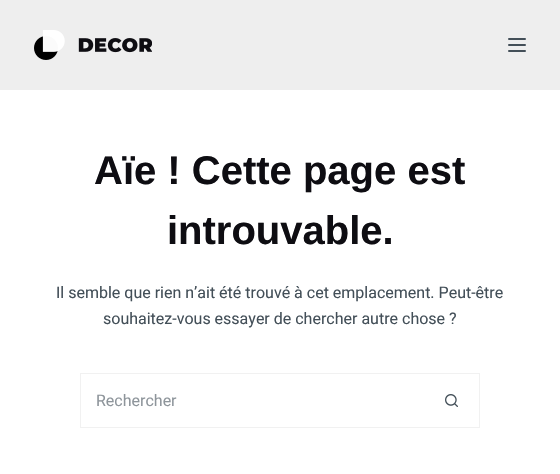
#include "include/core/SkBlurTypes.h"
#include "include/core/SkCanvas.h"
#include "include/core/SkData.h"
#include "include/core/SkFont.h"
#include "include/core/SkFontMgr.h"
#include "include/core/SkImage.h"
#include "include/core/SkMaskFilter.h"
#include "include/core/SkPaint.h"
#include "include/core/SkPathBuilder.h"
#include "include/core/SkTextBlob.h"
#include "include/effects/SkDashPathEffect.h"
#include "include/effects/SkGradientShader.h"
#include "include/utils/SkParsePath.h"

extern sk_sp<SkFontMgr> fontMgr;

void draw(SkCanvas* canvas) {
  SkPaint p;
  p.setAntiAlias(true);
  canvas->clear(SK_ColorWHITE);
  p.setColor(SkColorSetRGB(238, 238, 238));
  canvas->drawRect(SkRect::MakeLTRB(0, 0, 560, 90), p);
  canvas->drawImageRect(SkImages::DeferredFromEncodedData(SkData::MakeFromFileName("images/1.png")), SkRect::MakeLTRB(34, 30, 152, 60), SkSamplingOptions());
  p.setColor(SkColorSetRGB(67, 79, 88));
  canvas->drawRoundRect(SkRect::MakeLTRB(508, 38, 526, 40), 1, 1, p);
  canvas->drawRoundRect(SkRect::MakeLTRB(508, 44, 526, 46), 1, 1, p);
  canvas->drawRoundRect(SkRect::MakeLTRB(508, 50, 526, 52), 1, 1, p);
  p.setColor(SkColorSetRGB(241, 241, 241));
  canvas->drawRect(SkRect::MakeLTRB(80, 373, 480, 374), p);
  canvas->drawRect(SkRect::MakeLTRB(80, 427, 425, 428), p);
  canvas->drawRect(SkRect::MakeLTRB(80, 373, 81, 428), p);
  canvas->drawRect(SkRect::MakeLTRB(479, 373, 480, 428), p);
  canvas->drawRect(SkRect::MakeLTRB(425, 427, 480, 428), p);
  canvas->drawImageRect(SkImages::DeferredFromEncodedData(SkData::MakeFromFileName("images/2.png")), SkRect::MakeLTRB(445, 394, 458, 407), SkSamplingOptions());
  SkFont font1(fontMgr->matchFamilyStyle("Liberation Sans", SkFontStyle::Bold()), 40);
  font1.setSubpixel(true);
  p.setColor(SkColorSetRGB(14, 13, 18));
  canvas->drawString("Aïe ! Cette page est", 94, 184, font1, p);
  canvas->drawString("introuvable.", 167, 244, font1, p);
  SkFont font2(fontMgr->matchFamilyStyle("Roboto", SkFontStyle::Normal()), 16);
  font2.setSubpixel(true);
  p.setColor(SkColorSetRGB(67, 79, 88));
  canvas->drawString("Il semble que rien n’ait été trouvé à cet emplacement. Peut-être", 56, 298, font2, p);
  canvas->drawString("souhaitez-vous essayer de chercher autre chose ?", 103, 324, font2, p);
  p.setColor(SkColorSetRGB(142, 149, 155));
  canvas->drawString("Rechercher", 96, 406, font2, p);
}
